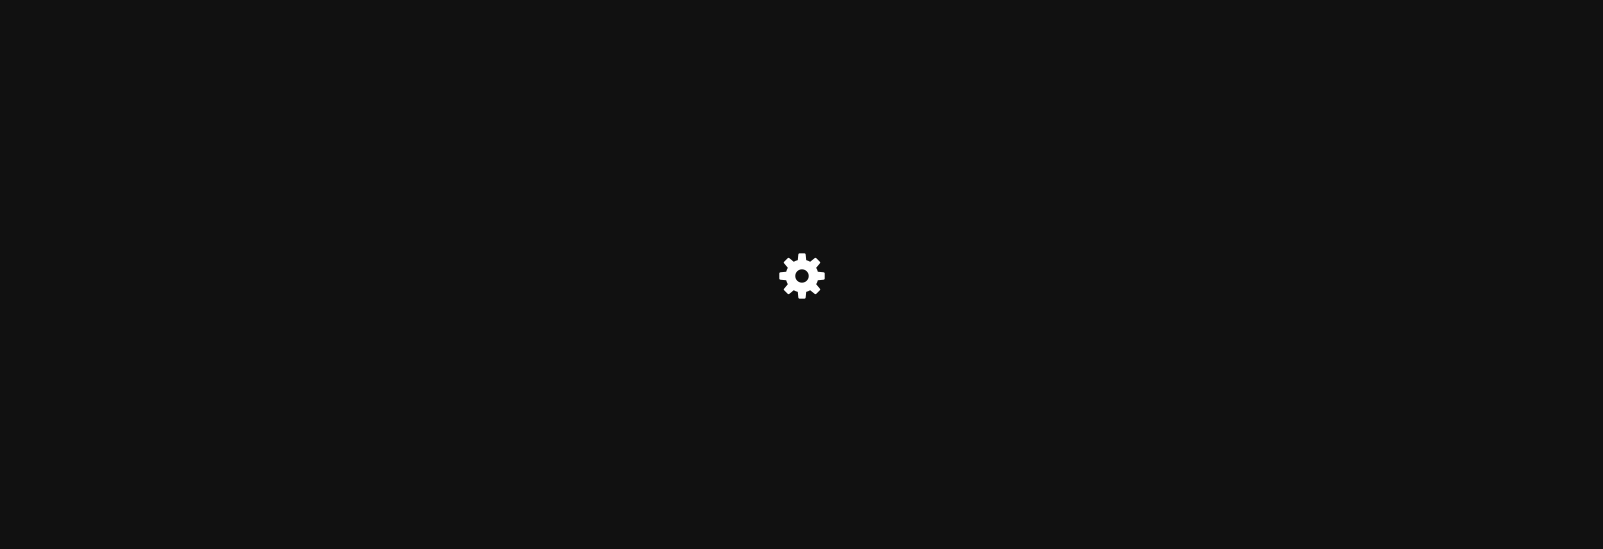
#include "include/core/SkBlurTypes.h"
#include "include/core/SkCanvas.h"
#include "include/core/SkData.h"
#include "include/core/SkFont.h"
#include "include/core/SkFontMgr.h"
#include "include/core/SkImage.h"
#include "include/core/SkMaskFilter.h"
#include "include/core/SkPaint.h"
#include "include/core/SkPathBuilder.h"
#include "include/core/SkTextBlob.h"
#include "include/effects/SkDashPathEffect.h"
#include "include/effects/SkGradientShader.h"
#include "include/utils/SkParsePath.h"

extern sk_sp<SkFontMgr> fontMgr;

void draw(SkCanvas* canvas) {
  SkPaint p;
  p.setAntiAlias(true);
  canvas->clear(SkColorSetRGB(17, 17, 17));
  canvas->drawImageRect(SkImages::DeferredFromEncodedData(SkData::MakeFromFileName("images/1.png")), SkRect::MakeLTRB(779, 253, 825, 299), SkSamplingOptions());
}
